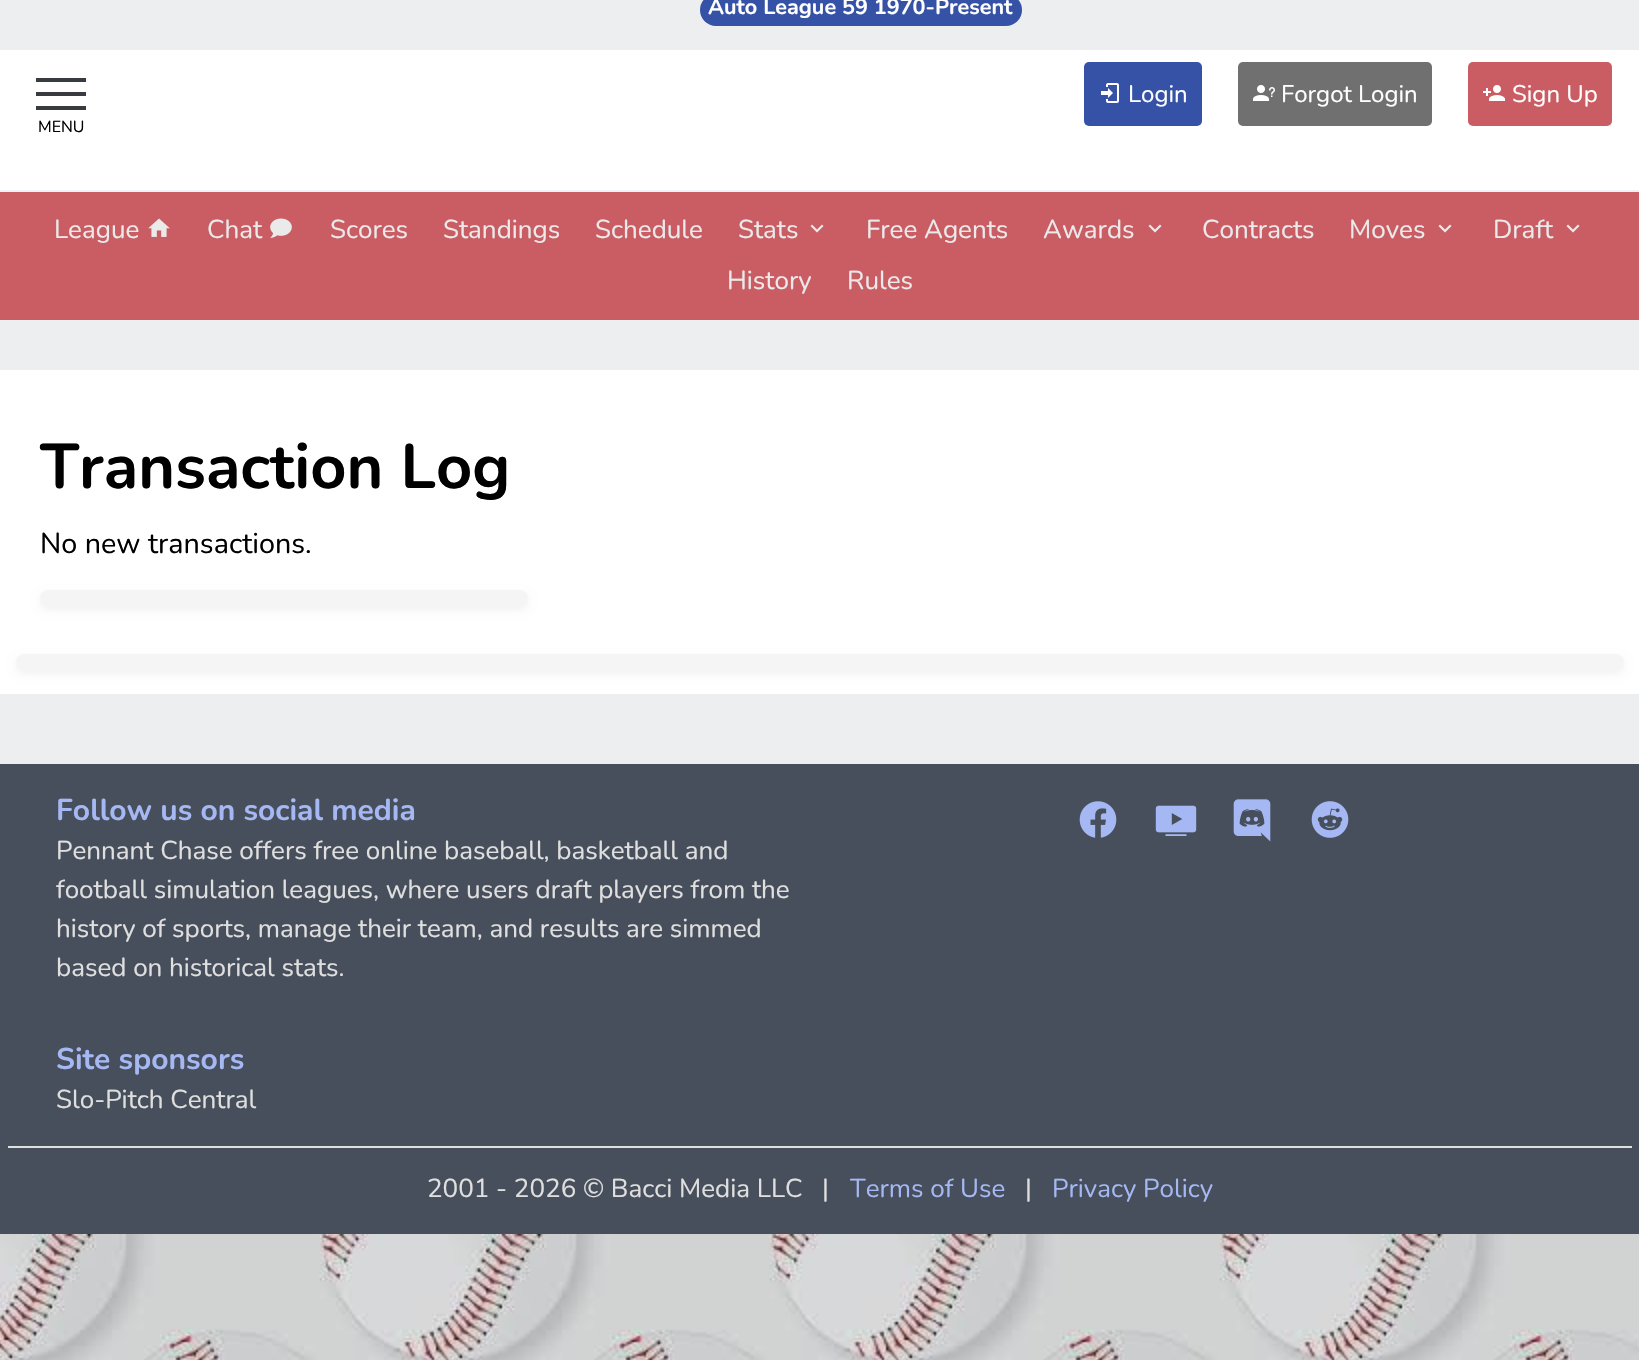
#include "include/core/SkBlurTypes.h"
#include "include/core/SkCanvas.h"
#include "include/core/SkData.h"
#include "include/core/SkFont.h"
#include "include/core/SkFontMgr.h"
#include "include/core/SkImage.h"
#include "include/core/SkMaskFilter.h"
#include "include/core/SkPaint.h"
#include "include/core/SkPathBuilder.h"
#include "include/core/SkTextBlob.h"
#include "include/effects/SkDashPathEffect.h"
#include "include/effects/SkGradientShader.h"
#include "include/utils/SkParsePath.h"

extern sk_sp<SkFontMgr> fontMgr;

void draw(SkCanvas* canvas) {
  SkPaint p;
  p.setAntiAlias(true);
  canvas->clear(SkColorSetRGB(237, 238, 240));
  p.setColor(SkColorSetRGB(54, 82, 166));
  canvas->drawRoundRect(SkRect::MakeLTRB(700, -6, 1022, 26), 16, 16, p);
  p.setColor(SK_ColorWHITE);
  canvas->drawRect(SkRect::MakeLTRB(0, 50, 1639, 190), p);
  p.setColor(SkColorSetRGB(54, 82, 166));
  canvas->drawRoundRect(SkRect::MakeLTRB(1084, 62, 1202, 126), 5, 5, p);
  canvas->drawImageRect(SkImages::DeferredFromEncodedData(SkData::MakeFromFileName("images/1.png")), SkRect::MakeLTRB(1101, 83, 1119, 103), SkSamplingOptions());
  p.setColor(SkColorSetRGB(112, 112, 112));
  canvas->drawRoundRect(SkRect::MakeLTRB(1238, 62, 1432, 126), 5, 5, p);
  canvas->drawImageRect(SkImages::DeferredFromEncodedData(SkData::MakeFromFileName("images/2.png")), SkRect::MakeLTRB(1253, 85, 1275, 101), SkSamplingOptions());
  p.setColor(SkColorSetRGB(201, 93, 99));
  canvas->drawRoundRect(SkRect::MakeLTRB(1468, 62, 1612, 126), 5, 5, p);
  canvas->drawImageRect(SkImages::DeferredFromEncodedData(SkData::MakeFromFileName("images/3.png")), SkRect::MakeLTRB(1483, 85, 1505, 101), SkSamplingOptions());
  p.setColor(SkColorSetRGB(56, 59, 63));
  canvas->drawRect(SkRect::MakeLTRB(36, 78, 86, 82), p);
  canvas->drawRect(SkRect::MakeLTRB(36, 92, 86, 96), p);
  canvas->drawRect(SkRect::MakeLTRB(36, 106, 86, 110), p);
  p.setColor(SkColorSetRGB(238, 242, 247));
  canvas->drawRect(SkRect::MakeLTRB(0, 190, 1639, 192), p);
  p.setColor(SkColorSetRGB(201, 93, 99));
  canvas->drawRect(SkRect::MakeLTRB(0, 192, 1639, 320), p);
  canvas->drawImageRect(SkImages::DeferredFromEncodedData(SkData::MakeFromFileName("images/4.png")), SkRect::MakeLTRB(148, 218, 170, 237), SkSamplingOptions());
  canvas->drawImageRect(SkImages::DeferredFromEncodedData(SkData::MakeFromFileName("images/5.png")), SkRect::MakeLTRB(270, 218, 292, 238), SkSamplingOptions());
  canvas->drawImageRect(SkImages::DeferredFromEncodedData(SkData::MakeFromFileName("images/6.png")), SkRect::MakeLTRB(810, 224, 824, 233), SkSamplingOptions());
  canvas->drawImageRect(SkImages::DeferredFromEncodedData(SkData::MakeFromFileName("images/6.png")), SkRect::MakeLTRB(1148, 224, 1162, 233), SkSamplingOptions());
  canvas->drawImageRect(SkImages::DeferredFromEncodedData(SkData::MakeFromFileName("images/6.png")), SkRect::MakeLTRB(1438, 224, 1452, 233), SkSamplingOptions());
  canvas->drawImageRect(SkImages::DeferredFromEncodedData(SkData::MakeFromFileName("images/6.png")), SkRect::MakeLTRB(1566, 224, 1580, 233), SkSamplingOptions());
  p.setColor(SK_ColorWHITE);
  canvas->drawRect(SkRect::MakeLTRB(0, 370, 1639, 694), p);
  p.setColor(SkColorSetARGB(13, 0, 0, 0));
  p.setMaskFilter(SkMaskFilter::MakeBlur(kNormal_SkBlurStyle, 4));
  canvas->drawRoundRect(SkRect::MakeLTRB(40, 594, 528, 610), 8, 8, p);
  p.setMaskFilter(nullptr);
  p.setColor(SkColorSetRGB(245, 245, 245));
  canvas->drawRoundRect(SkRect::MakeLTRB(40, 590, 528, 606), 8, 8, p);
  p.setColor(SkColorSetARGB(13, 0, 0, 0));
  p.setMaskFilter(SkMaskFilter::MakeBlur(kNormal_SkBlurStyle, 4));
  canvas->drawRoundRect(SkRect::MakeLTRB(16, 658, 1624, 674), 8, 8, p);
  p.setMaskFilter(nullptr);
  p.setColor(SkColorSetRGB(245, 245, 245));
  canvas->drawRoundRect(SkRect::MakeLTRB(16, 654, 1624, 670), 8, 8, p);
  p.setColor(SkColorSetRGB(70, 79, 91));
  canvas->drawRect(SkRect::MakeLTRB(0, 764, 1639, 1234), p);
  canvas->drawImageRect(SkImages::DeferredFromEncodedData(SkData::MakeFromFileName("images/7.png")), SkRect::MakeLTRB(1079, 801, 1117, 838), SkSamplingOptions());
  canvas->drawImageRect(SkImages::DeferredFromEncodedData(SkData::MakeFromFileName("images/8.png")), SkRect::MakeLTRB(1155, 805, 1197, 836), SkSamplingOptions());
  canvas->drawImageRect(SkImages::DeferredFromEncodedData(SkData::MakeFromFileName("images/9.png")), SkRect::MakeLTRB(1233, 799, 1271, 842), SkSamplingOptions());
  canvas->drawImageRect(SkImages::DeferredFromEncodedData(SkData::MakeFromFileName("images/10.png")), SkRect::MakeLTRB(1311, 801, 1349, 838), SkSamplingOptions());
  p.setColor(SkColorSetRGB(224, 223, 223));
  canvas->drawRect(SkRect::MakeLTRB(8, 1146, 1632, 1148), p);
  canvas->drawImageRect(SkImages::DeferredFromEncodedData(SkData::MakeFromFileName("images/11.png")), SkRect::MakeLTRB(0, 1234, 1639, 1360), SkSamplingOptions());
  SkFont font1(fontMgr->matchFamilyStyle("Nunito", SkFontStyle::Bold()), 21.6f);
  font1.setSubpixel(true);
  p.setColor(SK_ColorWHITE);
  canvas->drawString("Auto League 59 1970-Present", 708, 14, font1, p);
  SkFont font2(fontMgr->matchFamilyStyle("Nunito", SkFontStyle::Normal()), 24);
  font2.setSubpixel(true);
  canvas->drawString("Login", 1128, 102, font2, p);
  canvas->drawString("Forgot Login", 1281, 102, font2, p);
  canvas->drawString("Sign Up", 1512, 102, font2, p);
  SkFont font3(fontMgr->matchFamilyStyle("Nunito", SkFontStyle::Normal()), 16);
  font3.setSubpixel(true);
  p.setColor(SK_ColorBLACK);
  canvas->drawString("MENU", 38, 132, font3, p);
  SkFont font4(fontMgr->matchFamilyStyle("Nunito", SkFontStyle::Normal()), 26);
  font4.setSubpixel(true);
  p.setColor(SkColorSetRGB(235, 234, 234));
  canvas->drawString("League", 54, 238, font4, p);
  canvas->drawString("Chat", 207, 238, font4, p);
  canvas->drawString("Scores", 330, 238, font4, p);
  canvas->drawString("Standings", 443, 238, font4, p);
  canvas->drawString("Schedule", 595, 238, font4, p);
  canvas->drawString("Stats", 738, 238, font4, p);
  canvas->drawString("Free Agents", 866, 238, font4, p);
  canvas->drawString("Awards", 1043, 238, font4, p);
  canvas->drawString("Contracts", 1202, 238, font4, p);
  canvas->drawString("Moves", 1349, 238, font4, p);
  canvas->drawString("Draft", 1493, 238, font4, p);
  canvas->drawString("History", 727, 289, font4, p);
  canvas->drawString("Rules", 847, 289, font4, p);
  SkFont font5(fontMgr->matchFamilyStyle("Nunito", SkFontStyle::Bold()), 63);
  font5.setSubpixel(true);
  p.setColor(SK_ColorBLACK);
  canvas->drawString("Transaction Log", 40, 488, font5, p);
  SkFont font6(fontMgr->matchFamilyStyle("Nunito", SkFontStyle::Normal()), 28.75f);
  font6.setSubpixel(true);
  canvas->drawString("No new transactions.", 40, 553, font6, p);
  SkFont font7(fontMgr->matchFamilyStyle("Nunito", SkFontStyle::Bold()), 30);
  font7.setSubpixel(true);
  p.setColor(SkColorSetRGB(165, 184, 243));
  canvas->drawString("Follow us on social media", 56, 820, font7, p);
  p.setColor(SkColorSetRGB(224, 223, 223));
  canvas->drawString("Pennant Chase offers free online baseball, basketball and", 56, 859, font4, p);
  canvas->drawString("football simulation leagues, where users draft players from the", 56, 898, font4, p);
  canvas->drawString("history of sports, manage their team, and results are simmed", 56, 937, font4, p);
  canvas->drawString("based on historical stats.", 56, 976, font4, p);
  p.setColor(SkColorSetRGB(165, 184, 243));
  canvas->drawString("Site sponsors", 56, 1069, font7, p);
  p.setColor(SkColorSetRGB(224, 223, 223));
  canvas->drawString("Slo-Pitch Central", 56, 1108, font4, p);
  canvas->drawString("2001 - 2026 © Bacci Media LLC", 427, 1197, font4, p);
  canvas->drawString("|", 822, 1197, font4, p);
  p.setColor(SkColorSetRGB(165, 184, 243));
  canvas->drawString("Terms of Use", 850, 1197, font4, p);
  p.setColor(SkColorSetRGB(224, 223, 223));
  canvas->drawString("|", 1025, 1197, font4, p);
  p.setColor(SkColorSetRGB(165, 184, 243));
  canvas->drawString("Privacy Policy", 1052, 1197, font4, p);
}
